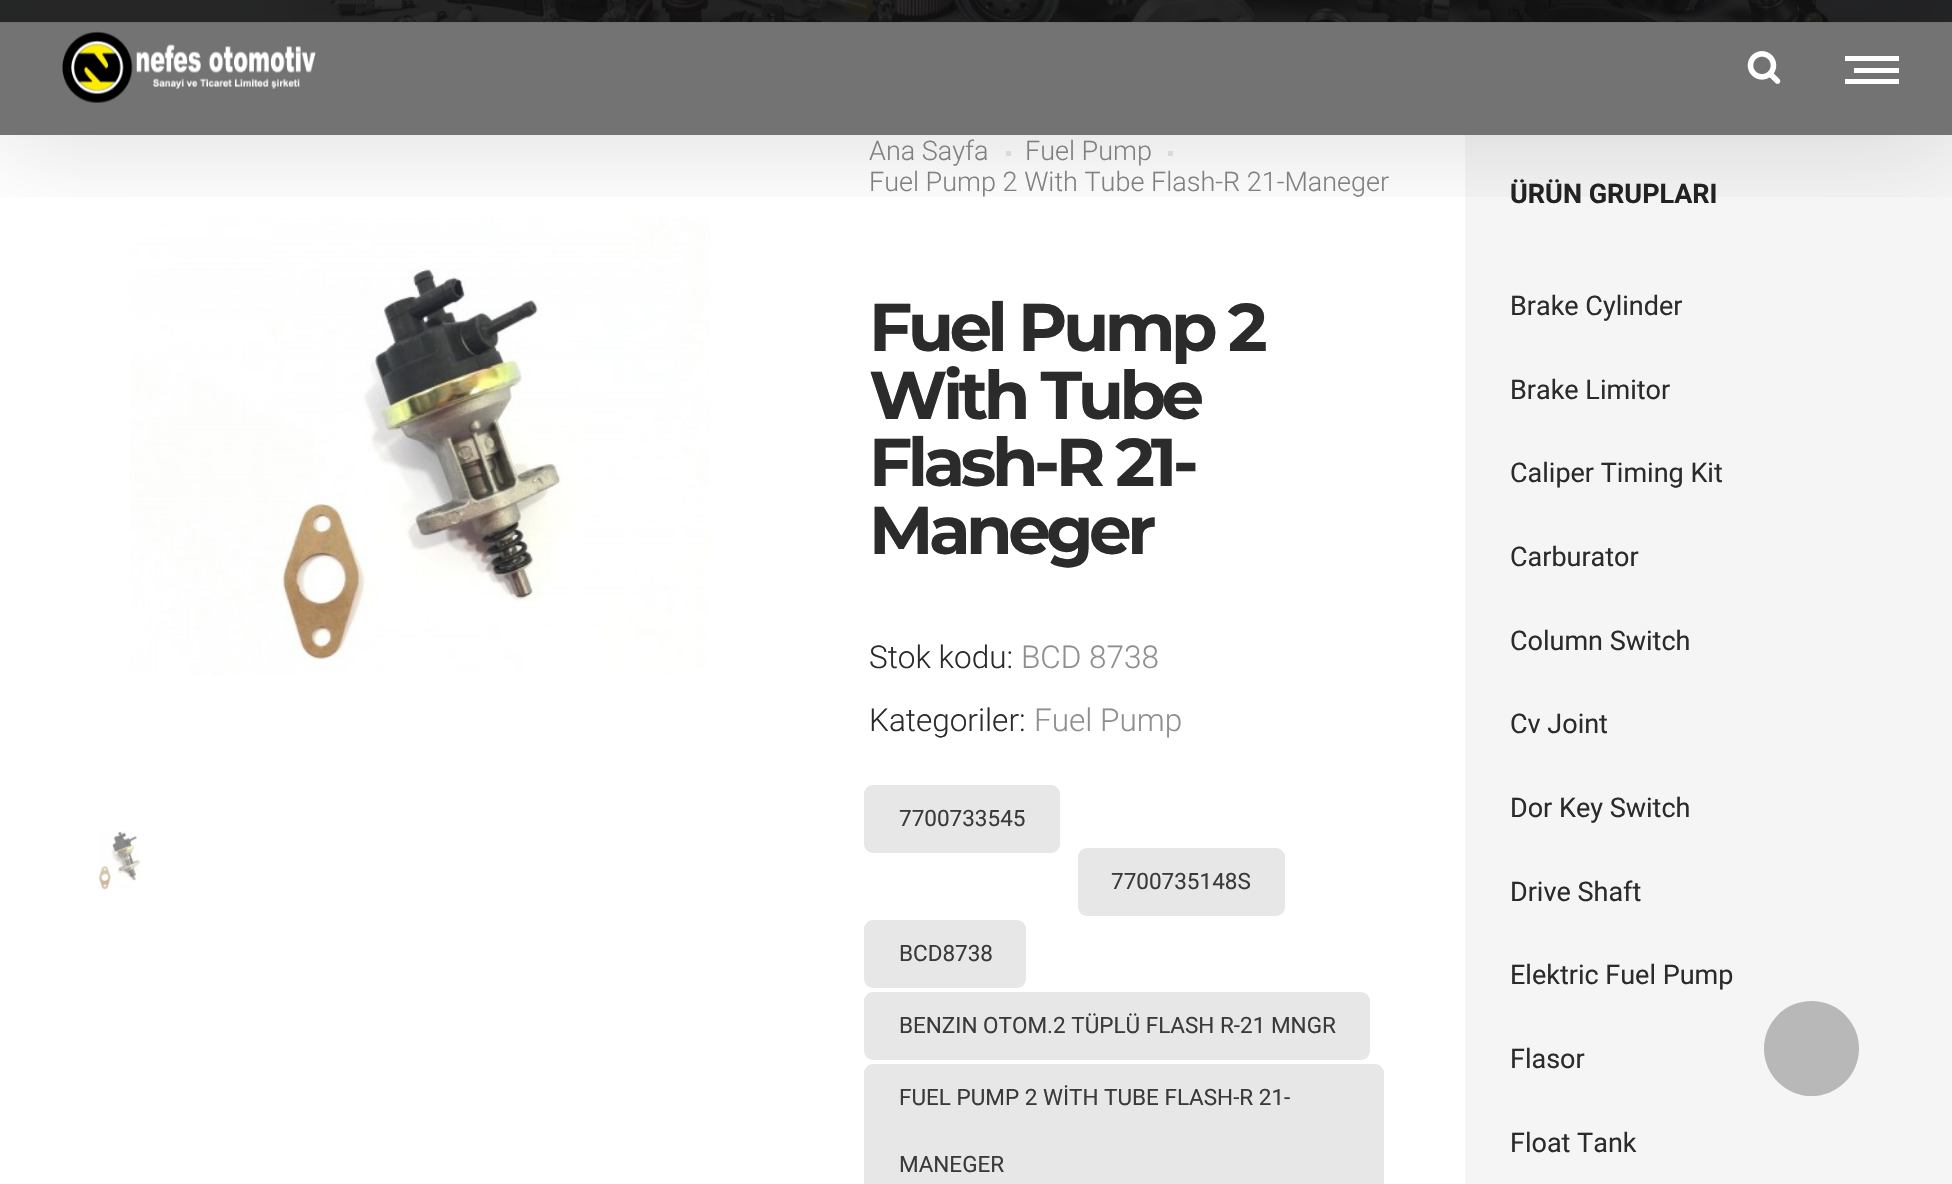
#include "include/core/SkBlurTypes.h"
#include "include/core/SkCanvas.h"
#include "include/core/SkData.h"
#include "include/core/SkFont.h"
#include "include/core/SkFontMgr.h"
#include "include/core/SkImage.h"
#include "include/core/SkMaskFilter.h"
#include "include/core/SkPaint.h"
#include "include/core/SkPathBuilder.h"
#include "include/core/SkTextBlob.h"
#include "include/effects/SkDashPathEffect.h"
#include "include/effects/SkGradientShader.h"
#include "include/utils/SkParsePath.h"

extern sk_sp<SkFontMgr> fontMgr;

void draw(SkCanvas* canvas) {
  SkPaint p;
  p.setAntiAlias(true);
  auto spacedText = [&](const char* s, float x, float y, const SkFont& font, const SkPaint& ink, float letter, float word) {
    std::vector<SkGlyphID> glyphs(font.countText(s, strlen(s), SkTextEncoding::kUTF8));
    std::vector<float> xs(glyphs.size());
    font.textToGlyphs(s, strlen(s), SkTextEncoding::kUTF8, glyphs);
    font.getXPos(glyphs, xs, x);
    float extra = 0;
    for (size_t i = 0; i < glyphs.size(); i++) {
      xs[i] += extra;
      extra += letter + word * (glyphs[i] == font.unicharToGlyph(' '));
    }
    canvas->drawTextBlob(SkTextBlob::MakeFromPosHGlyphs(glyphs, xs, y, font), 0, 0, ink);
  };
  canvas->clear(SK_ColorWHITE);
  p.setColor(SkColorSetRGB(115, 115, 115));
  canvas->drawRect(SkRect::MakeLTRB(0, 22, 1952, 135), p);
  canvas->drawImageRect(SkImages::DeferredFromEncodedData(SkData::MakeFromFileName("images/3.png")), SkRect::MakeLTRB(0, 0, 1952, 23), SkSamplingOptions());
  canvas->drawImageRect(SkImages::DeferredFromEncodedData(SkData::MakeFromFileName("images/4.png")), SkRect::MakeLTRB(130, 217, 710, 675), SkSamplingOptions());
  p.setColor(SkColorSetRGB(231, 231, 231));
  canvas->drawRect(SkRect::MakeLTRB(1006, 151, 1011, 156), p);
  canvas->drawRect(SkRect::MakeLTRB(1168, 151, 1173, 156), p);
  p.setColor(SkColorSetRGB(245, 245, 245));
  canvas->drawRect(SkRect::MakeLTRB(1465, 135, 1952, 1184), p);
  canvas->save();
  canvas->clipRect(SkRect::MakeLTRB(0, 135, 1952, 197));
  p.setColor(SkColorSetARGB(38, 0, 0, 0));
  p.setMaskFilter(SkMaskFilter::MakeBlur(kNormal_SkBlurStyle, 56));
  canvas->drawRect(SkRect::MakeLTRB(0, 0, 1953, 135), p);
  p.setMaskFilter(nullptr);
  canvas->restore();
  canvas->drawImageRect(SkImages::DeferredFromEncodedData(SkData::MakeFromFileName("images/1.png")), SkRect::MakeLTRB(62, 31, 316, 103), SkSamplingOptions());
  canvas->drawImageRect(SkImages::DeferredFromEncodedData(SkData::MakeFromFileName("images/2.png")), SkRect::MakeLTRB(1747, 51, 1781, 84), SkSamplingOptions());
  p.setColor(SK_ColorWHITE);
  canvas->drawRect(SkRect::MakeLTRB(1845, 56, 1899, 61), p);
  canvas->drawRect(SkRect::MakeLTRB(1854, 68, 1899, 73), p);
  canvas->drawRect(SkRect::MakeLTRB(1845, 79, 1899, 84), p);
  canvas->drawImageRect(SkImages::DeferredFromEncodedData(SkData::MakeFromFileName("images/5.png")), SkRect::MakeLTRB(98, 831, 141, 890), SkSamplingOptions());
  p.setColor(SkColorSetRGB(231, 231, 231));
  canvas->drawRoundRect(SkRect::MakeLTRB(864, 785, 1060, 853), 9, 9, p);
  canvas->drawRoundRect(SkRect::MakeLTRB(1078, 848, 1285, 916), 9, 9, p);
  canvas->drawRoundRect(SkRect::MakeLTRB(864, 920, 1026, 988), 9, 9, p);
  canvas->drawRoundRect(SkRect::MakeLTRB(864, 992, 1370, 1060), 9, 9, p);
  canvas->drawRoundRect(SkRect::MakeLTRB(864, 1064, 1384, 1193), 9, 9, p);
  p.setColor(SkColorSetRGB(184, 184, 184));
  canvas->drawCircle(1811.5f, 1048.5f, 47.5f, p);
  SkFont font1(fontMgr->matchFamilyStyle("Roboto", SkFontStyle(300, SkFontStyle::kNormal_Width, SkFontStyle::kUpright_Slant)), 27);
  font1.setSubpixel(true);
  p.setColor(SkColorSetRGB(128, 128, 128));
  canvas->drawString("Ana Sayfa", 869, 160, font1, p);
  canvas->drawString("Fuel Pump", 1025, 160, font1, p);
  canvas->drawString("Fuel Pump 2 With Tube Flash-R 21-Maneger", 869, 191, font1, p);
  SkFont font2(fontMgr->matchFamilyStyle("Montserrat", SkFontStyle::Bold()), 67.5f);
  font2.setSubpixel(true);
  p.setColor(SkColorSetRGB(43, 43, 43));
  spacedText("Fuel Pump 2", 869, 351, font2, p, -4.5f, 0);
  spacedText("With Tube", 869, 419, font2, p, -4.5f, 0);
  spacedText("Flash-R 21-", 869, 486, font2, p, -4.5f, 0);
  spacedText("Maneger", 869, 554, font2, p, -4.5f, 0);
  SkFont font3(fontMgr->matchFamilyStyle("Roboto", SkFontStyle(300, SkFontStyle::kNormal_Width, SkFontStyle::kUpright_Slant)), 31.5f);
  font3.setSubpixel(true);
  canvas->drawString("Stok kodu:", 869, 668, font3, p);
  p.setColor(SkColorSetRGB(143, 143, 143));
  canvas->drawString("BCD 8738", 1021, 668, font3, p);
  p.setColor(SkColorSetRGB(43, 43, 43));
  canvas->drawString("Kategoriler:", 869, 731, font3, p);
  p.setColor(SkColorSetRGB(143, 143, 143));
  canvas->drawString("Fuel Pump", 1034, 731, font3, p);
  SkFont font4(fontMgr->matchFamilyStyle("Roboto", SkFontStyle::Normal()), 22.5f);
  font4.setSubpixel(true);
  p.setColor(SkColorSetRGB(58, 58, 58));
  canvas->drawString("7700733545", 899, 826, font4, p);
  canvas->drawString("7700735148S", 1111, 889, font4, p);
  canvas->drawString("BCD8738", 899, 961, font4, p);
  canvas->drawString("BENZIN OTOM.2 TÜPLÜ FLASH R-21 MNGR", 899, 1033, font4, p);
  canvas->drawString("FUEL PUMP 2 WİTH TUBE FLASH-R 21-", 899, 1105, font4, p);
  canvas->drawString("MANEGER", 899, 1172, font4, p);
  SkFont font5(fontMgr->matchFamilyStyle("Roboto", SkFontStyle::Bold()), 27);
  font5.setSubpixel(true);
  p.setColor(SkColorSetRGB(34, 34, 34));
  canvas->drawString("ÜRÜN GRUPLARI", 1510, 203, font5, p);
  SkFont font6(fontMgr->matchFamilyStyle("Roboto", SkFontStyle::Normal()), 27);
  font6.setSubpixel(true);
  p.setColor(SkColorSetRGB(43, 43, 43));
  canvas->drawString("Brake Cylinder", 1510, 315, font6, p);
  canvas->drawString("Brake Limitor", 1510, 399, font6, p);
  canvas->drawString("Caliper Timing Kit", 1510, 482, font6, p);
  canvas->drawString("Carburator", 1510, 566, font6, p);
  canvas->drawString("Column Switch", 1510, 650, font6, p);
  canvas->drawString("Cv Joint", 1510, 733, font6, p);
  canvas->drawString("Dor Key Switch", 1510, 817, font6, p);
  canvas->drawString("Drive Shaft", 1510, 901, font6, p);
  canvas->drawString("Elektric Fuel Pump", 1510, 984, font6, p);
  canvas->drawString("Flasor", 1510, 1068, font6, p);
  canvas->drawString("Float Tank", 1510, 1152, font6, p);
}
